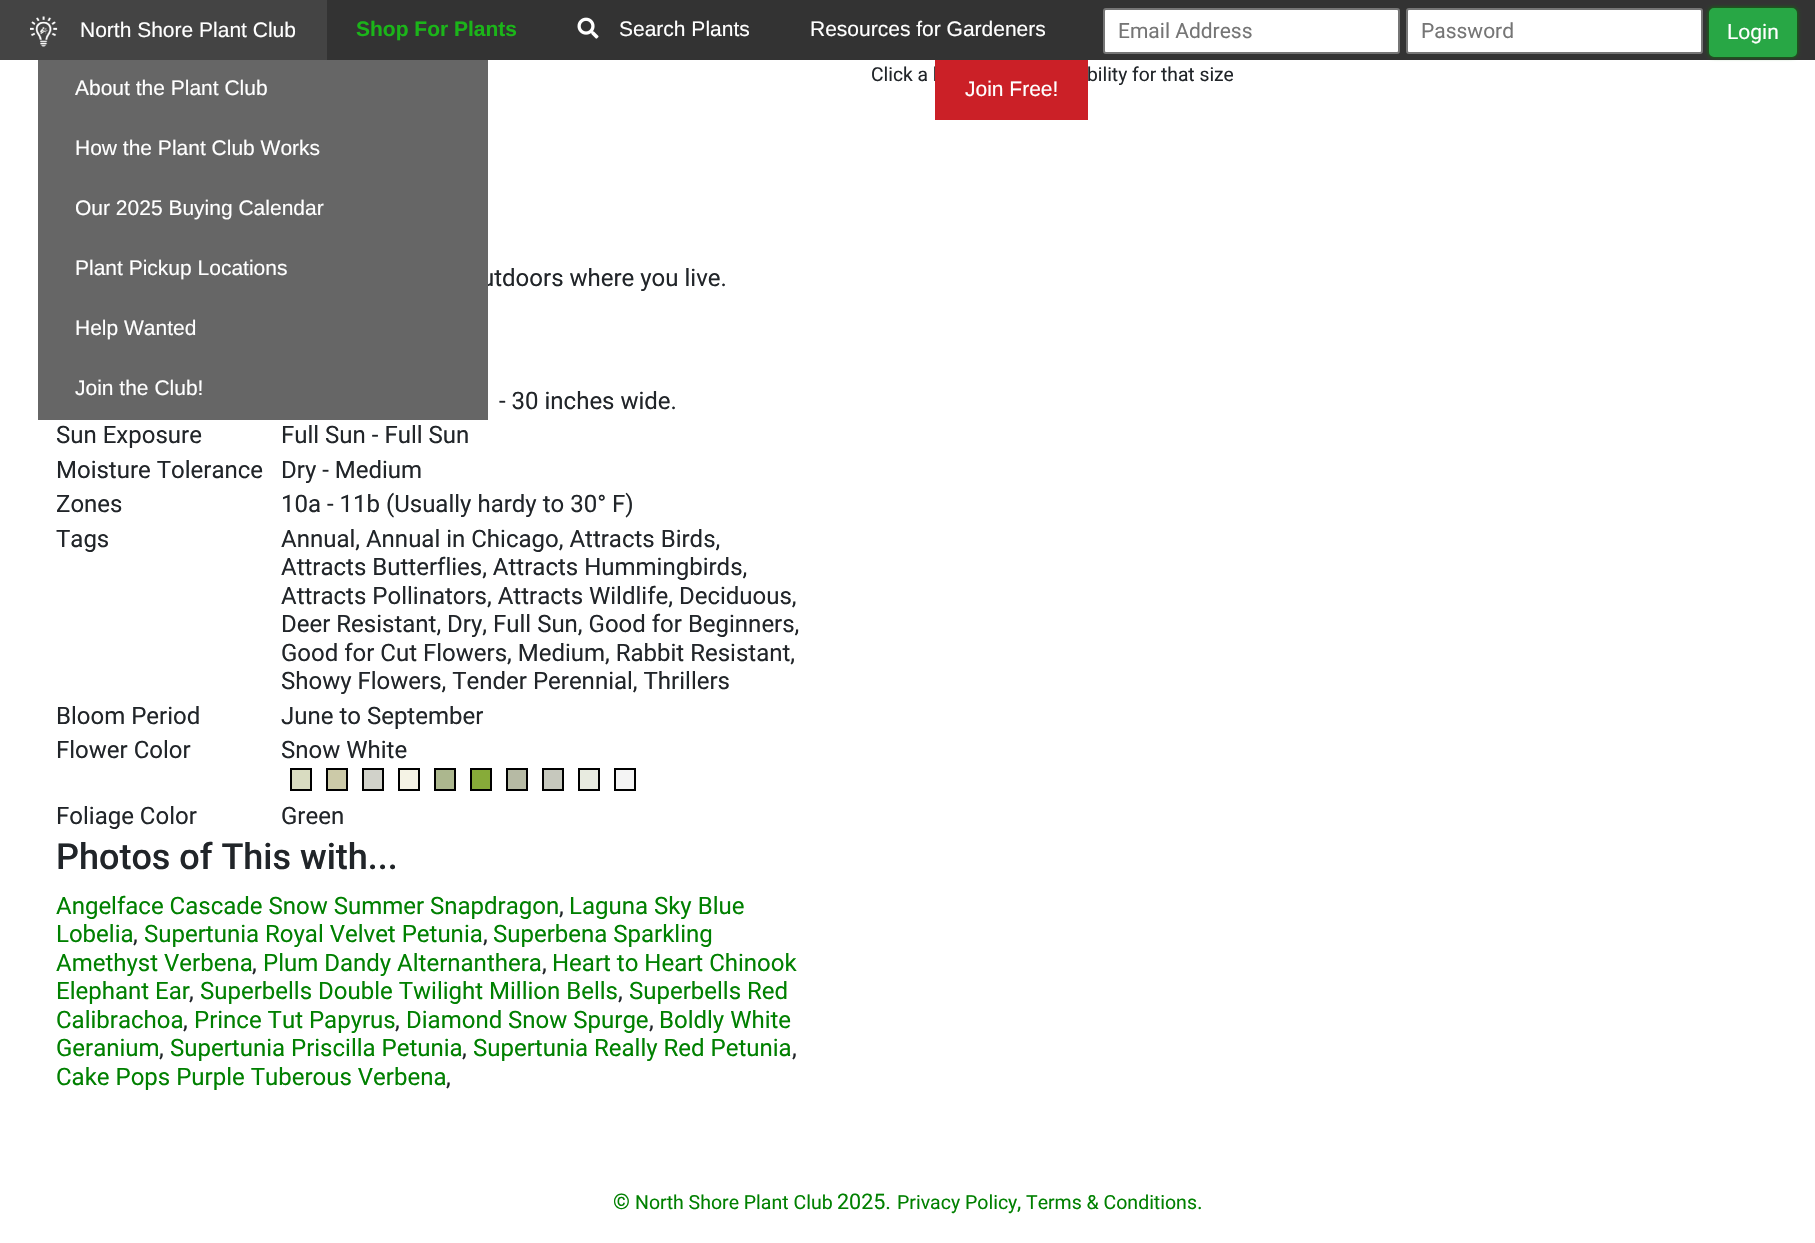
#include "include/core/SkBlurTypes.h"
#include "include/core/SkCanvas.h"
#include "include/core/SkData.h"
#include "include/core/SkFont.h"
#include "include/core/SkFontMgr.h"
#include "include/core/SkImage.h"
#include "include/core/SkMaskFilter.h"
#include "include/core/SkPaint.h"
#include "include/core/SkPathBuilder.h"
#include "include/core/SkTextBlob.h"
#include "include/effects/SkDashPathEffect.h"
#include "include/effects/SkGradientShader.h"
#include "include/utils/SkParsePath.h"

extern sk_sp<SkFontMgr> fontMgr;

void draw(SkCanvas* canvas) {
  SkPaint p;
  p.setAntiAlias(true);
  canvas->clear(SK_ColorWHITE);
  p.setColor(SkColorSetRGB(51, 51, 51));
  canvas->drawRect(SkRect::MakeLTRB(327, 0, 1815, 60), p);
  p.setColor(SkColorSetRGB(68, 68, 68));
  canvas->drawRect(SkRect::MakeLTRB(0, 0, 327, 60), p);
  canvas->drawImageRect(SkImages::DeferredFromEncodedData(SkData::MakeFromFileName("images/1.png")), SkRect::MakeLTRB(30, 16, 58, 47), SkSamplingOptions());
  canvas->drawImageRect(SkImages::DeferredFromEncodedData(SkData::MakeFromFileName("images/2.png")), SkRect::MakeLTRB(577, 17, 599, 39), SkSamplingOptions());
  p.setColor(SK_ColorWHITE);
  canvas->drawRoundRect(SkRect::MakeLTRB(1104, 9, 1399, 53), 2, 2, p);
  p.setStyle(SkPaint::kStroke_Style);
  p.setStrokeWidth(2);
  p.setColor(SkColorSetRGB(118, 118, 118));
  canvas->drawRoundRect(SkRect::MakeLTRB(1104, 9, 1399, 53), 2, 2, p);
  p.setStyle(SkPaint::kFill_Style);
  p.setColor(SK_ColorWHITE);
  canvas->drawRoundRect(SkRect::MakeLTRB(1407, 9, 1702, 53), 2, 2, p);
  p.setStyle(SkPaint::kStroke_Style);
  p.setColor(SkColorSetRGB(118, 118, 118));
  canvas->drawRoundRect(SkRect::MakeLTRB(1407, 9, 1702, 53), 2, 2, p);
  p.setStyle(SkPaint::kFill_Style);
  p.setColor(SkColorSetRGB(0, 128, 0));
  p.setMaskFilter(SkMaskFilter::MakeBlur(kNormal_SkBlurStyle, 2));
  canvas->drawRoundRect(SkRect::MakeLTRB(1709, 8, 1797, 57), 5, 5, p);
  p.setMaskFilter(nullptr);
  p.setColor(SkColorSetRGB(40, 167, 69));
  canvas->drawRoundRect(SkRect::MakeLTRB(1710, 9, 1796, 56), 4, 4, p);
  p.setStyle(SkPaint::kStroke_Style);
  canvas->drawRoundRect(SkRect::MakeLTRB(1710, 9, 1796, 56), 4, 4, p);
  p.setStyle(SkPaint::kFill_Style);
  p.setColor(SkColorSetRGB(217, 220, 193));
  canvas->drawRect(SkRect::MakeLTRB(291, 769, 311, 790), p);
  p.setStyle(SkPaint::kStroke_Style);
  p.setColor(SK_ColorBLACK);
  canvas->drawRect(SkRect::MakeLTRB(291, 769, 311, 790), p);
  p.setStyle(SkPaint::kFill_Style);
  p.setColor(SkColorSetRGB(204, 202, 168));
  canvas->drawRect(SkRect::MakeLTRB(327, 769, 347, 790), p);
  p.setStyle(SkPaint::kStroke_Style);
  p.setColor(SK_ColorBLACK);
  canvas->drawRect(SkRect::MakeLTRB(327, 769, 347, 790), p);
  p.setStyle(SkPaint::kFill_Style);
  p.setColor(SkColorSetRGB(209, 210, 202));
  canvas->drawRect(SkRect::MakeLTRB(363, 769, 383, 790), p);
  p.setStyle(SkPaint::kStroke_Style);
  p.setColor(SK_ColorBLACK);
  canvas->drawRect(SkRect::MakeLTRB(363, 769, 383, 790), p);
  p.setStyle(SkPaint::kFill_Style);
  p.setColor(SkColorSetRGB(245, 243, 229));
  canvas->drawRect(SkRect::MakeLTRB(399, 769, 419, 790), p);
  p.setStyle(SkPaint::kStroke_Style);
  p.setColor(SK_ColorBLACK);
  canvas->drawRect(SkRect::MakeLTRB(399, 769, 419, 790), p);
  p.setStyle(SkPaint::kFill_Style);
  p.setColor(SkColorSetRGB(172, 183, 142));
  canvas->drawRect(SkRect::MakeLTRB(435, 769, 455, 790), p);
  p.setStyle(SkPaint::kStroke_Style);
  p.setColor(SK_ColorBLACK);
  canvas->drawRect(SkRect::MakeLTRB(435, 769, 455, 790), p);
  p.setStyle(SkPaint::kFill_Style);
  p.setColor(SkColorSetRGB(135, 171, 57));
  canvas->drawRect(SkRect::MakeLTRB(471, 769, 491, 790), p);
  p.setStyle(SkPaint::kStroke_Style);
  p.setColor(SK_ColorBLACK);
  canvas->drawRect(SkRect::MakeLTRB(471, 769, 491, 790), p);
  p.setStyle(SkPaint::kFill_Style);
  p.setColor(SkColorSetRGB(182, 186, 164));
  canvas->drawRect(SkRect::MakeLTRB(507, 769, 527, 790), p);
  p.setStyle(SkPaint::kStroke_Style);
  p.setColor(SK_ColorBLACK);
  canvas->drawRect(SkRect::MakeLTRB(507, 769, 527, 790), p);
  p.setStyle(SkPaint::kFill_Style);
  p.setColor(SkColorSetRGB(198, 200, 189));
  canvas->drawRect(SkRect::MakeLTRB(543, 769, 563, 790), p);
  p.setStyle(SkPaint::kStroke_Style);
  p.setColor(SK_ColorBLACK);
  canvas->drawRect(SkRect::MakeLTRB(543, 769, 563, 790), p);
  p.setStyle(SkPaint::kFill_Style);
  p.setColor(SkColorSetRGB(232, 235, 224));
  canvas->drawRect(SkRect::MakeLTRB(579, 769, 599, 790), p);
  p.setStyle(SkPaint::kStroke_Style);
  p.setColor(SK_ColorBLACK);
  canvas->drawRect(SkRect::MakeLTRB(579, 769, 599, 790), p);
  p.setStyle(SkPaint::kFill_Style);
  p.setColor(SkColorSetRGB(244, 244, 244));
  canvas->drawRect(SkRect::MakeLTRB(615, 769, 635, 790), p);
  p.setStyle(SkPaint::kStroke_Style);
  p.setColor(SK_ColorBLACK);
  canvas->drawRect(SkRect::MakeLTRB(615, 769, 635, 790), p);
  SkFont font1(fontMgr->matchFamilyStyle("Liberation Sans", SkFontStyle::Normal()), 21);
  font1.setSubpixel(true);
  p.setStyle(SkPaint::kFill_Style);
  p.setColor(SK_ColorWHITE);
  canvas->drawString("North Shore Plant Club", 80, 37, font1, p);
  SkFont font2(fontMgr->matchFamilyStyle("Liberation Sans", SkFontStyle::Bold()), 21);
  font2.setSubpixel(true);
  p.setColor(SkColorSetRGB(27, 181, 25));
  canvas->drawString("Shop For Plants", 356, 36, font2, p);
  p.setColor(SK_ColorWHITE);
  canvas->drawString("Search Plants", 619, 36, font1, p);
  canvas->drawString("Resources for Gardeners", 810, 36, font1, p);
  SkFont font3(fontMgr->matchFamilyStyle("Roboto", SkFontStyle::Normal()), 21);
  font3.setSubpixel(true);
  p.setColor(SkColorSetRGB(117, 117, 117));
  canvas->drawString("Email Address", 1118, 38, font3, p);
  canvas->drawString("Password", 1421, 38, font3, p);
  p.setColor(SK_ColorWHITE);
  canvas->drawString("Login", 1727, 39, font3, p);
  SkFont font4(fontMgr->matchFamilyStyle("Roboto", SkFontStyle::Normal()), 19.25f);
  font4.setSubpixel(true);
  p.setColor(SkColorSetRGB(33, 37, 41));
  canvas->drawString("Click a l", 871, 81, font4, p);
  p.setColor(SkColorSetRGB(203, 32, 39));
  canvas->drawRect(SkRect::MakeLTRB(935, 60, 1088, 120), p);
  p.setColor(SK_ColorWHITE);
  canvas->drawString("Join Free!", 965, 96, font1, p);
  p.setColor(SkColorSetRGB(33, 37, 41));
  canvas->drawString("bility for that size", 1087, 81, font4, p);
  SkFont font5(fontMgr->matchFamilyStyle("Roboto", SkFontStyle::Normal()), 24);
  font5.setSubpixel(true);
  canvas->drawString("utdoors where you live.", 481, 286, font5, p);
  p.setColor(SkColorSetRGB(102, 102, 102));
  canvas->drawRect(SkRect::MakeLTRB(38, 60, 488, 420), p);
  p.setColor(SK_ColorWHITE);
  canvas->drawString("Join the Club!", 75, 395, font1, p);
  canvas->drawString("Help Wanted", 75, 335, font1, p);
  canvas->drawString("Plant Pickup Locations", 75, 275, font1, p);
  canvas->drawString("Our 2025 Buying Calendar", 75, 215, font1, p);
  canvas->drawString("How the Plant Club Works", 75, 155, font1, p);
  canvas->drawString("About the Plant Club", 75, 95, font1, p);
  p.setColor(SkColorSetRGB(33, 37, 41));
  canvas->drawString("- 30 inches wide.", 499, 409, font5, p);
  canvas->drawString("Sun Exposure", 56, 443, font5, p);
  canvas->drawString("Full Sun - Full Sun", 281, 443, font5, p);
  canvas->drawString("Moisture Tolerance", 56, 478, font5, p);
  canvas->drawString("Dry - Medium", 281, 478, font5, p);
  canvas->drawString("Zones", 56, 512, font5, p);
  canvas->drawString("10a - 11b (Usually hardy to 30° F)", 281, 512, font5, p);
  canvas->drawString("Tags", 56, 547, font5, p);
  canvas->drawString("Annual, Annual in Chicago, Attracts Birds,", 281, 547, font5, p);
  canvas->drawString("Attracts Butterflies, Attracts Hummingbirds,", 281, 575, font5, p);
  canvas->drawString("Attracts Pollinators, Attracts Wildlife, Deciduous,", 281, 604, font5, p);
  canvas->drawString("Deer Resistant, Dry, Full Sun, Good for Beginners,", 281, 632, font5, p);
  canvas->drawString("Good for Cut Flowers, Medium, Rabbit Resistant,", 281, 661, font5, p);
  canvas->drawString("Showy Flowers, Tender Perennial, Thrillers", 281, 689, font5, p);
  canvas->drawString("Bloom Period", 56, 724, font5, p);
  canvas->drawString("June to September", 281, 724, font5, p);
  canvas->drawString("Flower Color", 56, 758, font5, p);
  canvas->drawString("Snow White", 281, 758, font5, p);
  canvas->drawString("Foliage Color", 56, 824, font5, p);
  canvas->drawString("Green", 281, 824, font5, p);
  SkFont font6(fontMgr->matchFamilyStyle("Roboto", SkFontStyle(500, SkFontStyle::kNormal_Width, SkFontStyle::kUpright_Slant)), 36);
  font6.setSubpixel(true);
  canvas->drawString("Photos of This with...", 56, 869, font6, p);
  p.setColor(SkColorSetRGB(0, 128, 0));
  canvas->drawString("Angelface Cascade Snow Summer Snapdragon", 56, 914, font5, p);
  p.setColor(SkColorSetRGB(33, 37, 41));
  canvas->drawString(",", 559, 914, font5, p);
  p.setColor(SkColorSetRGB(0, 128, 0));
  canvas->drawString("Laguna Sky Blue", 569, 914, font5, p);
  canvas->drawString("Lobelia", 56, 942, font5, p);
  p.setColor(SkColorSetRGB(33, 37, 41));
  canvas->drawString(",", 133, 942, font5, p);
  p.setColor(SkColorSetRGB(0, 128, 0));
  canvas->drawString("Supertunia Royal Velvet Petunia", 144, 942, font5, p);
  p.setColor(SkColorSetRGB(33, 37, 41));
  canvas->drawString(",", 483, 942, font5, p);
  p.setColor(SkColorSetRGB(0, 128, 0));
  canvas->drawString("Superbena Sparkling", 493, 942, font5, p);
  canvas->drawString("Amethyst Verbena", 56, 971, font5, p);
  p.setColor(SkColorSetRGB(33, 37, 41));
  canvas->drawString(",", 252, 971, font5, p);
  p.setColor(SkColorSetRGB(0, 128, 0));
  canvas->drawString("Plum Dandy Alternanthera", 263, 971, font5, p);
  p.setColor(SkColorSetRGB(33, 37, 41));
  canvas->drawString(",", 542, 971, font5, p);
  p.setColor(SkColorSetRGB(0, 128, 0));
  canvas->drawString("Heart to Heart Chinook", 552, 971, font5, p);
  canvas->drawString("Elephant Ear", 56, 999, font5, p);
  p.setColor(SkColorSetRGB(33, 37, 41));
  canvas->drawString(",", 189, 999, font5, p);
  p.setColor(SkColorSetRGB(0, 128, 0));
  canvas->drawString("Superbells Double Twilight Million Bells", 200, 999, font5, p);
  p.setColor(SkColorSetRGB(33, 37, 41));
  canvas->drawString(",", 618, 999, font5, p);
  p.setColor(SkColorSetRGB(0, 128, 0));
  canvas->drawString("Superbells Red", 629, 999, font5, p);
  canvas->drawString("Calibrachoa", 56, 1028, font5, p);
  p.setColor(SkColorSetRGB(33, 37, 41));
  canvas->drawString(",", 183, 1028, font5, p);
  p.setColor(SkColorSetRGB(0, 128, 0));
  canvas->drawString("Prince Tut Papyrus", 194, 1028, font5, p);
  p.setColor(SkColorSetRGB(33, 37, 41));
  canvas->drawString(",", 395, 1028, font5, p);
  p.setColor(SkColorSetRGB(0, 128, 0));
  canvas->drawString("Diamond Snow Spurge", 406, 1028, font5, p);
  p.setColor(SkColorSetRGB(33, 37, 41));
  canvas->drawString(",", 649, 1028, font5, p);
  p.setColor(SkColorSetRGB(0, 128, 0));
  canvas->drawString("Boldly White", 659, 1028, font5, p);
  canvas->drawString("Geranium", 56, 1056, font5, p);
  p.setColor(SkColorSetRGB(33, 37, 41));
  canvas->drawString(",", 159, 1056, font5, p);
  p.setColor(SkColorSetRGB(0, 128, 0));
  canvas->drawString("Supertunia Priscilla Petunia", 170, 1056, font5, p);
  p.setColor(SkColorSetRGB(33, 37, 41));
  canvas->drawString(",", 462, 1056, font5, p);
  p.setColor(SkColorSetRGB(0, 128, 0));
  canvas->drawString("Supertunia Really Red Petunia", 473, 1056, font5, p);
  p.setColor(SkColorSetRGB(33, 37, 41));
  canvas->drawString(",", 792, 1056, font5, p);
  p.setColor(SkColorSetRGB(0, 128, 0));
  canvas->drawString("Cake Pops Purple Tuberous Verbena", 56, 1085, font5, p);
  p.setColor(SkColorSetRGB(33, 37, 41));
  canvas->drawString(",", 446, 1085, font5, p);
  SkFont font7(fontMgr->matchFamilyStyle("Roboto", SkFontStyle::Normal()), 21.5f);
  font7.setSubpixel(true);
  p.setColor(SkColorSetRGB(0, 128, 0));
  canvas->drawString("©", 613, 1209, font7, p);
  SkFont font8(fontMgr->matchFamilyStyle("Roboto", SkFontStyle::Normal()), 19.5f);
  font8.setSubpixel(true);
  canvas->drawString("North Shore Plant Club", 635, 1209, font8, p);
  canvas->drawString("2025.", 837, 1209, font7, p);
  canvas->drawString("Privacy Policy", 897, 1209, font8, p);
  canvas->drawString(",", 1017, 1209, font7, p);
  canvas->drawString("Terms & Conditions", 1026, 1209, font8, p);
  canvas->drawString(".", 1197, 1209, font7, p);
}
